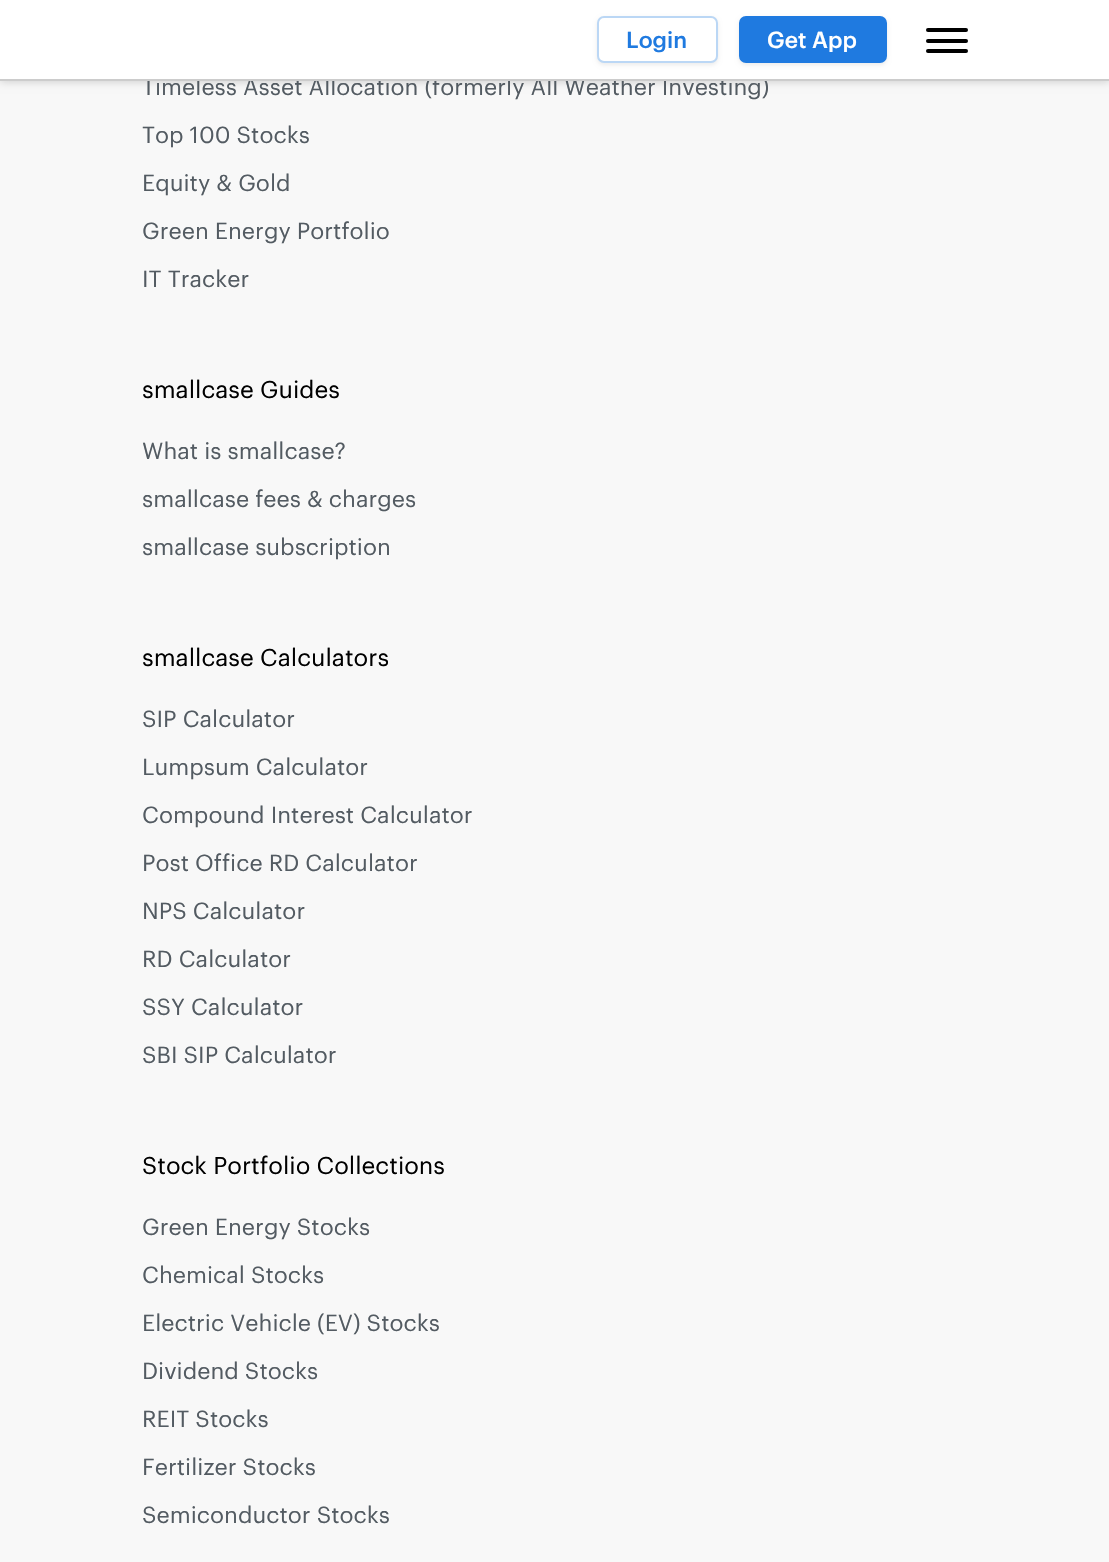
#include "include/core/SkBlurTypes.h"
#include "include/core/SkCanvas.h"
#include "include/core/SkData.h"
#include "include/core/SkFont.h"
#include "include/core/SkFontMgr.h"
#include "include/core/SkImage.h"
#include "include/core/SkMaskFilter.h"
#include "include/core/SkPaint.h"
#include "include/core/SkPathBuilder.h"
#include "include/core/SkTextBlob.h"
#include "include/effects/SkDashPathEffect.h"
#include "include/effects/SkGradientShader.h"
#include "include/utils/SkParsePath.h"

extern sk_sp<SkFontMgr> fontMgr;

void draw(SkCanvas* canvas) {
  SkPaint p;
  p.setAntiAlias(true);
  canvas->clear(SkColorSetRGB(248, 248, 248));
  p.setColor(SkColorSetARGB(51, 0, 0, 0));
  p.setMaskFilter(SkMaskFilter::MakeBlur(kNormal_SkBlurStyle, 4.5f));
  canvas->drawRect(SkRect::MakeLTRB(0, 0, 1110, 81), p);
  p.setMaskFilter(nullptr);
  SkFont font1(fontMgr->matchFamilyStyle("Graphik", SkFontStyle::Normal()), 22.75f);
  font1.setSubpixel(true);
  p.setColor(SkColorSetRGB(83, 91, 98));
  canvas->drawString("Timeless Asset Allocation (formerly All Weather Investing)", 142, 95, font1, p);
  p.setColor(SK_ColorWHITE);
  canvas->drawRect(SkRect::MakeLTRB(0, 0, 1109, 79), p);
  p.setColor(SK_ColorBLACK);
  canvas->drawRoundRect(SkRect::MakeLTRB(926, 49, 968, 53), 2, 2, p);
  canvas->drawRoundRect(SkRect::MakeLTRB(926, 39, 968, 43), 2, 2, p);
  canvas->drawRoundRect(SkRect::MakeLTRB(926, 28, 968, 32), 2, 2, p);
  p.setColor(SkColorSetARGB(20, 0, 0, 0));
  p.setMaskFilter(SkMaskFilter::MakeBlur(kNormal_SkBlurStyle, 2));
  canvas->drawRoundRect(SkRect::MakeLTRB(739, 18, 887, 65), 7, 7, p);
  p.setMaskFilter(nullptr);
  p.setColor(SkColorSetRGB(31, 122, 224));
  canvas->drawRoundRect(SkRect::MakeLTRB(740, 17, 886, 62), 6, 6, p);
  p.setStyle(SkPaint::kStroke_Style);
  p.setStrokeWidth(2);
  canvas->drawRoundRect(SkRect::MakeLTRB(740, 17, 886, 62), 6, 6, p);
  SkFont font2(fontMgr->matchFamilyStyle("Graphik", SkFontStyle(500, SkFontStyle::kNormal_Width, SkFontStyle::kUpright_Slant)), 22.75f);
  font2.setSubpixel(true);
  p.setStyle(SkPaint::kFill_Style);
  p.setColor(SK_ColorWHITE);
  canvas->drawString("Get App", 767, 48, font2, p);
  p.setColor(SkColorSetARGB(20, 0, 0, 0));
  p.setMaskFilter(SkMaskFilter::MakeBlur(kNormal_SkBlurStyle, 2));
  canvas->drawRoundRect(SkRect::MakeLTRB(597, 18, 718, 65), 7, 7, p);
  p.setMaskFilter(nullptr);
  p.setColor(SK_ColorWHITE);
  canvas->drawRoundRect(SkRect::MakeLTRB(598, 17, 717, 62), 6, 6, p);
  p.setStyle(SkPaint::kStroke_Style);
  p.setColor(SkColorSetRGB(187, 215, 245));
  canvas->drawRoundRect(SkRect::MakeLTRB(598, 17, 717, 62), 6, 6, p);
  p.setStyle(SkPaint::kFill_Style);
  p.setColor(SkColorSetRGB(31, 122, 224));
  canvas->drawString("Login", 626, 48, font2, p);
  p.setColor(SkColorSetRGB(204, 204, 204));
  canvas->drawRect(SkRect::MakeLTRB(0, 79, 1109, 81), p);
  p.setColor(SkColorSetRGB(83, 91, 98));
  canvas->drawString("Top 100 Stocks", 142, 143, font1, p);
  canvas->drawString("Equity & Gold", 142, 191, font1, p);
  canvas->drawString("Green Energy Portfolio", 142, 239, font1, p);
  canvas->drawString("IT Tracker", 142, 287, font1, p);
  SkFont font3(fontMgr->matchFamilyStyle("Graphik", SkFontStyle::Normal()), 23.75f);
  font3.setSubpixel(true);
  p.setColor(SK_ColorBLACK);
  canvas->drawString("smallcase Guides", 142, 398, font3, p);
  p.setColor(SkColorSetRGB(83, 91, 98));
  canvas->drawString("What is smallcase?", 142, 459, font1, p);
  canvas->drawString("smallcase fees & charges", 142, 507, font1, p);
  canvas->drawString("smallcase subscription", 142, 555, font1, p);
  p.setColor(SK_ColorBLACK);
  canvas->drawString("smallcase Calculators", 142, 666, font3, p);
  p.setColor(SkColorSetRGB(83, 91, 98));
  canvas->drawString("SIP Calculator", 142, 727, font1, p);
  canvas->drawString("Lumpsum Calculator", 142, 775, font1, p);
  canvas->drawString("Compound Interest Calculator", 142, 823, font1, p);
  canvas->drawString("Post Office RD Calculator", 142, 871, font1, p);
  canvas->drawString("NPS Calculator", 142, 919, font1, p);
  canvas->drawString("RD Calculator", 142, 967, font1, p);
  canvas->drawString("SSY Calculator", 142, 1015, font1, p);
  canvas->drawString("SBI SIP Calculator", 142, 1063, font1, p);
  p.setColor(SK_ColorBLACK);
  canvas->drawString("Stock Portfolio Collections", 142, 1174, font3, p);
  p.setColor(SkColorSetRGB(83, 91, 98));
  canvas->drawString("Green Energy Stocks", 142, 1235, font1, p);
  canvas->drawString("Chemical Stocks", 142, 1283, font1, p);
  canvas->drawString("Electric Vehicle (EV) Stocks", 142, 1331, font1, p);
  canvas->drawString("Dividend Stocks", 142, 1379, font1, p);
  canvas->drawString("REIT Stocks", 142, 1427, font1, p);
  canvas->drawString("Fertilizer Stocks", 142, 1475, font1, p);
  canvas->drawString("Semiconductor Stocks", 142, 1523, font1, p);
}
